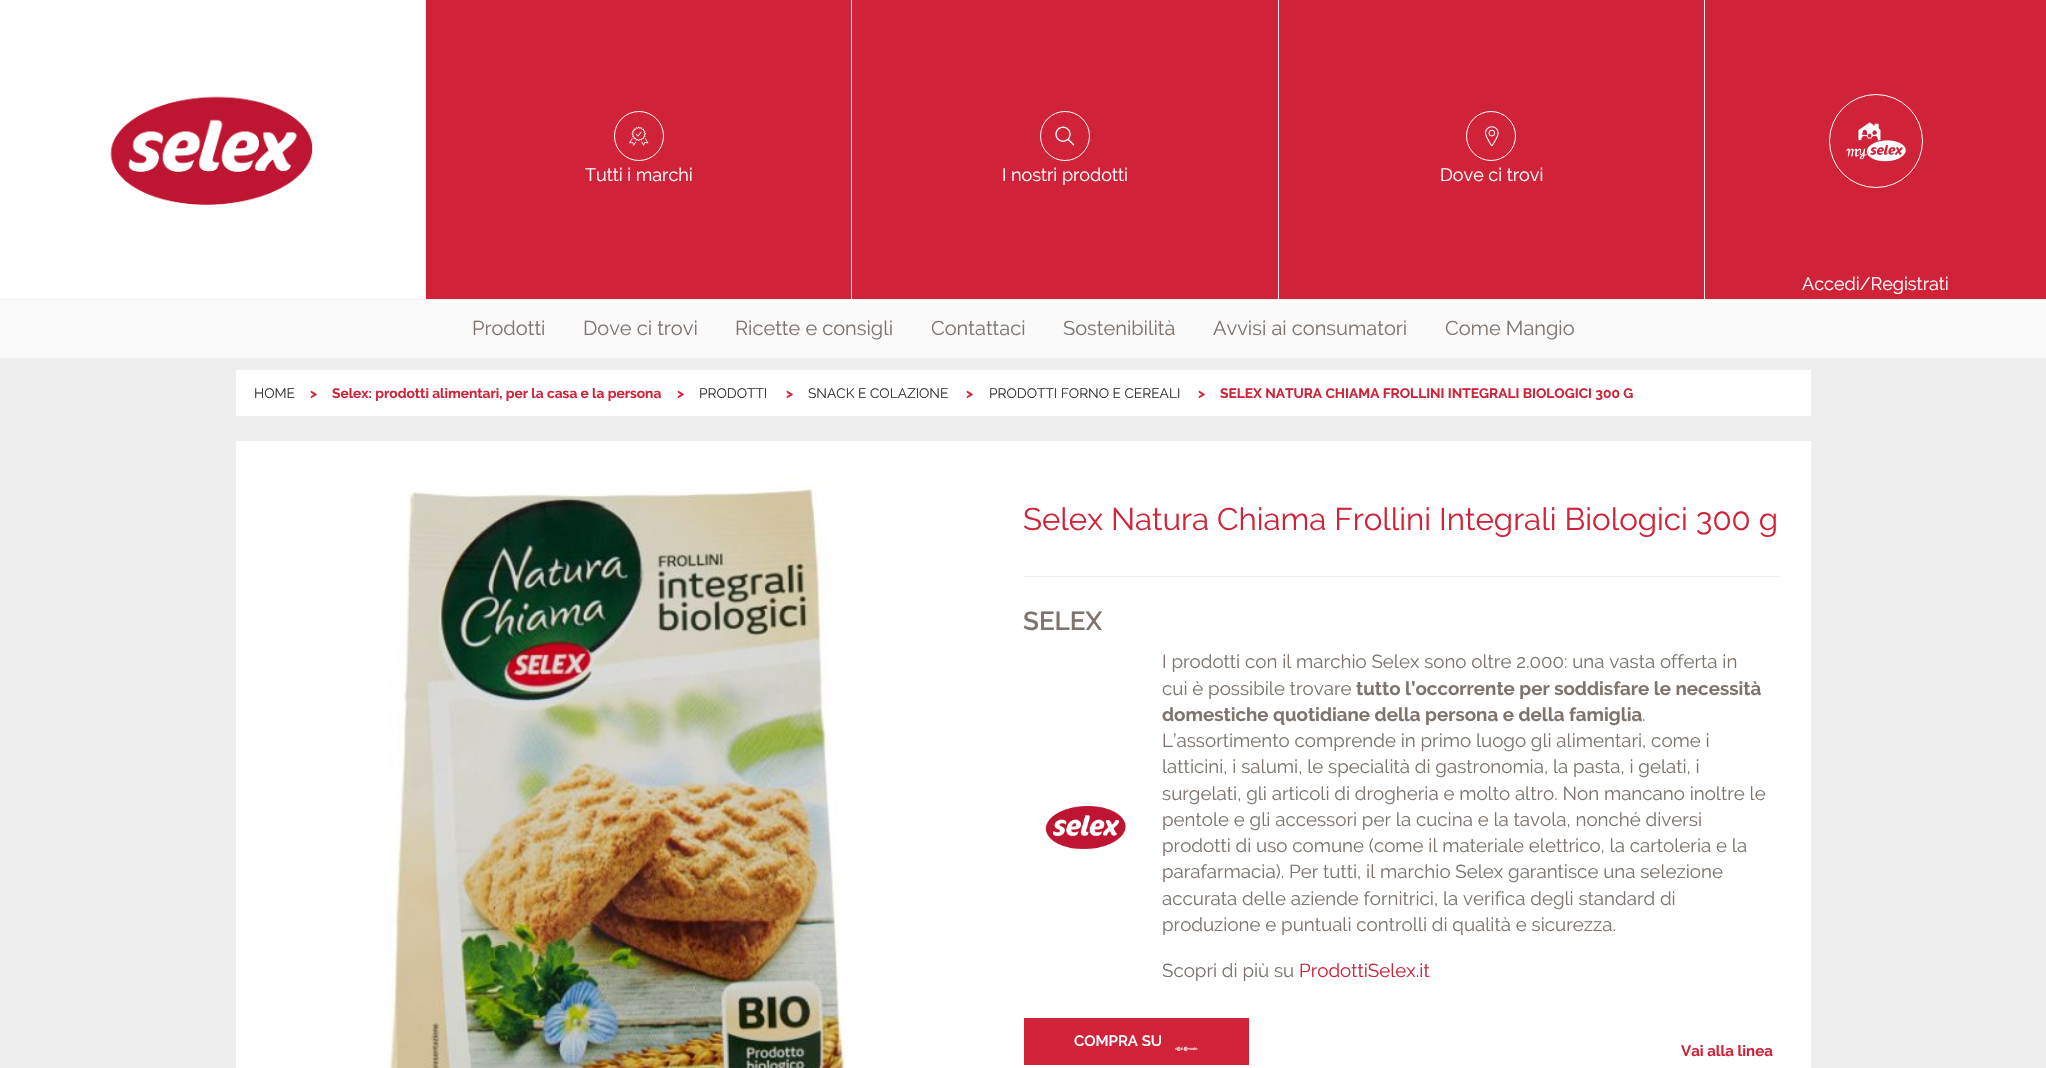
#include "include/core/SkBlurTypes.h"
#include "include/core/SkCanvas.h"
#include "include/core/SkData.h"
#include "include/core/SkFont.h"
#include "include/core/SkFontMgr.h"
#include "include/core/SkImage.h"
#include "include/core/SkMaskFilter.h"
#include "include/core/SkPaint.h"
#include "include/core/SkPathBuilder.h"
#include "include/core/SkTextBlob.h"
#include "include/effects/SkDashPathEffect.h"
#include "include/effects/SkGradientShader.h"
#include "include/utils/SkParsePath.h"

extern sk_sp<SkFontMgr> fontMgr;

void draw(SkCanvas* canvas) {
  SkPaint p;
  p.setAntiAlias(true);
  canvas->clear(SkColorSetRGB(238, 238, 238));
  p.setColor(SK_ColorWHITE);
  canvas->drawRect(SkRect::MakeLTRB(0, 0, 425, 299), p);
  canvas->drawImageRect(SkImages::DeferredFromEncodedData(SkData::MakeFromFileName("images/1.png")), SkRect::MakeLTRB(110, 96, 313, 205), SkSamplingOptions());
  p.setColor(SkColorSetRGB(208, 34, 56));
  canvas->drawRect(SkRect::MakeLTRB(426, 0, 1278, 299), p);
  p.setColor(SkColorSetRGB(238, 238, 238));
  canvas->drawRect(SkRect::MakeLTRB(851, 0, 852, 299), p);
  p.setStyle(SkPaint::kStroke_Style);
  p.setStrokeWidth(1);
  p.setColor(SK_ColorWHITE);
  canvas->drawCircle(639, 136, 24.5f, p);
  canvas->drawImageRect(SkImages::DeferredFromEncodedData(SkData::MakeFromFileName("images/2.png")), SkRect::MakeLTRB(629, 126, 649, 146), SkSamplingOptions());
  canvas->drawCircle(1065, 136, 24.5f, p);
  canvas->drawImageRect(SkImages::DeferredFromEncodedData(SkData::MakeFromFileName("images/3.png")), SkRect::MakeLTRB(1055, 126, 1075, 146), SkSamplingOptions());
  p.setStyle(SkPaint::kFill_Style);
  p.setColor(SkColorSetRGB(208, 34, 56));
  canvas->drawRect(SkRect::MakeLTRB(1279, 0, 1704, 299), p);
  p.setStyle(SkPaint::kStroke_Style);
  p.setColor(SK_ColorWHITE);
  canvas->drawCircle(1491, 136, 24.5f, p);
  canvas->drawImageRect(SkImages::DeferredFromEncodedData(SkData::MakeFromFileName("images/4.png")), SkRect::MakeLTRB(1485, 126, 1499, 147), SkSamplingOptions());
  p.setStyle(SkPaint::kFill_Style);
  p.setColor(SkColorSetRGB(208, 34, 56));
  canvas->drawRect(SkRect::MakeLTRB(1705, 0, 2046, 299), p);
  p.setStyle(SkPaint::kStroke_Style);
  p.setColor(SK_ColorWHITE);
  canvas->drawCircle(1876, 141, 46.5f, p);
  canvas->drawImageRect(SkImages::DeferredFromEncodedData(SkData::MakeFromFileName("images/5.png")), SkRect::MakeLTRB(1846, 122, 1906, 162), SkSamplingOptions());
  p.setStyle(SkPaint::kFill_Style);
  p.setColor(SkColorSetRGB(250, 250, 250));
  canvas->drawRect(SkRect::MakeLTRB(0, 300, 2046, 358), p);
  p.setColor(SK_ColorWHITE);
  canvas->drawRect(SkRect::MakeLTRB(236, 370, 1811, 416), p);
  canvas->drawRect(SkRect::MakeLTRB(236, 441, 1811, 1068), p);
  canvas->drawImageRect(SkImages::DeferredFromEncodedData(SkData::MakeFromFileName("images/6.png")), SkRect::MakeLTRB(388, 476, 848, 1068), SkSamplingOptions());
  p.setColor(SkColorSetRGB(238, 238, 238));
  canvas->drawRect(SkRect::MakeLTRB(1024, 576, 1780, 577), p);
  canvas->drawImageRect(SkImages::DeferredFromEncodedData(SkData::MakeFromFileName("images/7.png")), SkRect::MakeLTRB(1045, 806, 1126, 849), SkSamplingOptions());
  p.setColor(SkColorSetRGB(208, 34, 56));
  canvas->drawRect(SkRect::MakeLTRB(1024, 1018, 1249, 1065), p);
  canvas->drawImageRect(SkImages::DeferredFromEncodedData(SkData::MakeFromFileName("images/8.png")), SkRect::MakeLTRB(1175, 1046, 1198, 1052), SkSamplingOptions());
  SkFont font1(fontMgr->matchFamilyStyle("Raleway", SkFontStyle::Normal()), 18);
  font1.setSubpixel(true);
  p.setColor(SK_ColorWHITE);
  canvas->drawString("Tutti i marchi", 585, 181, font1, p);
  canvas->drawString("I nostri prodotti", 1002, 181, font1, p);
  canvas->drawString("Dove ci trovi", 1440, 181, font1, p);
  canvas->drawString("Accedi/Registrati", 1802, 290, font1, p);
  SkFont font2(fontMgr->matchFamilyStyle("Raleway", SkFontStyle::Normal()), 20);
  font2.setSubpixel(true);
  p.setColor(SkColorSetRGB(126, 116, 109));
  canvas->drawString("Prodotti", 472, 335, font2, p);
  canvas->drawString("Dove ci trovi", 583, 335, font2, p);
  canvas->drawString("Ricette e consigli", 735, 335, font2, p);
  canvas->drawString("Contattaci", 931, 335, font2, p);
  canvas->drawString("Sostenibilità", 1063, 335, font2, p);
  canvas->drawString("Avvisi ai consumatori", 1213, 335, font2, p);
  canvas->drawString("Come Mangio", 1445, 335, font2, p);
  SkFont font3(fontMgr->matchFamilyStyle("Raleway", SkFontStyle::Normal()), 13.75f);
  font3.setSubpixel(true);
  p.setColor(SkColorSetRGB(53, 53, 53));
  canvas->drawString("HOME", 254, 398, font3, p);
  SkFont font4(fontMgr->matchFamilyStyle("Raleway", SkFontStyle::Bold()), 13.75f);
  font4.setSubpixel(true);
  p.setColor(SkColorSetRGB(208, 34, 56));
  canvas->drawString(">", 310, 398, font4, p);
  canvas->drawString("Selex: prodotti alimentari, per la casa e la persona", 332, 398, font4, p);
  canvas->drawString(">", 677, 398, font4, p);
  p.setColor(SkColorSetRGB(53, 53, 53));
  canvas->drawString("PRODOTTI", 699, 398, font3, p);
  p.setColor(SkColorSetRGB(208, 34, 56));
  canvas->drawString(">", 786, 398, font4, p);
  p.setColor(SkColorSetRGB(53, 53, 53));
  canvas->drawString("SNACK E COLAZIONE", 808, 398, font3, p);
  p.setColor(SkColorSetRGB(208, 34, 56));
  canvas->drawString(">", 966, 398, font4, p);
  p.setColor(SkColorSetRGB(53, 53, 53));
  canvas->drawString("PRODOTTI FORNO E CEREALI", 989, 398, font3, p);
  p.setColor(SkColorSetRGB(208, 34, 56));
  canvas->drawString(">", 1198, 398, font4, p);
  canvas->drawString("SELEX NATURA CHIAMA FROLLINI INTEGRALI BIOLOGICI 300 G", 1220, 398, font4, p);
  SkFont font5(fontMgr->matchFamilyStyle("Raleway", SkFontStyle::Normal()), 31.25f);
  font5.setSubpixel(true);
  canvas->drawString("Selex Natura Chiama Frollini Integrali Biologici 300 g", 1023, 530, font5, p);
  SkFont font6(fontMgr->matchFamilyStyle("Raleway", SkFontStyle(600, SkFontStyle::kNormal_Width, SkFontStyle::kUpright_Slant)), 26);
  font6.setSubpixel(true);
  p.setColor(SkColorSetRGB(126, 116, 109));
  canvas->drawString("SELEX", 1023, 630, font6, p);
  SkFont font7(fontMgr->matchFamilyStyle("Raleway", SkFontStyle::Normal()), 18.75f);
  font7.setSubpixel(true);
  canvas->drawString("I prodotti con il marchio Selex sono oltre 2.000: una vasta offerta in", 1162, 668, font7, p);
  canvas->drawString("cui è possibile trovare", 1162, 695, font7, p);
  SkFont font8(fontMgr->matchFamilyStyle("Raleway", SkFontStyle::Bold()), 18.75f);
  font8.setSubpixel(true);
  canvas->drawString("tutto l’occorrente per soddisfare le necessità", 1356, 695, font8, p);
  canvas->drawString("domestiche quotidiane della persona e della famiglia", 1162, 721, font8, p);
  canvas->drawString(".", 1642, 721, font7, p);
  canvas->drawString("L’assortimento comprende in primo luogo gli alimentari, come i", 1162, 747, font7, p);
  canvas->drawString("latticini, i salumi, le specialità di gastronomia, la pasta, i gelati, i", 1162, 773, font7, p);
  canvas->drawString("surgelati, gli articoli di drogheria e molto altro. Non mancano inoltre le", 1162, 800, font7, p);
  canvas->drawString("pentole e gli accessori per la cucina e la tavola, nonché diversi", 1162, 826, font7, p);
  canvas->drawString("prodotti di uso comune (come il materiale elettrico, la cartoleria e la", 1162, 852, font7, p);
  canvas->drawString("parafarmacia). Per tutti, il marchio Selex garantisce una selezione", 1162, 878, font7, p);
  canvas->drawString("accurata delle aziende fornitrici, la verifica degli standard di", 1162, 905, font7, p);
  canvas->drawString("produzione e puntuali controlli di qualità e sicurezza.", 1162, 931, font7, p);
  canvas->drawString("Scopri di più su", 1162, 977, font7, p);
  p.setColor(SkColorSetRGB(208, 34, 56));
  canvas->drawString("ProdottiSelex.it", 1299, 977, font7, p);
  SkFont font9(fontMgr->matchFamilyStyle("Raleway", SkFontStyle(600, SkFontStyle::kNormal_Width, SkFontStyle::kUpright_Slant)), 15);
  font9.setSubpixel(true);
  p.setColor(SK_ColorWHITE);
  canvas->drawString("COMPRA SU", 1074, 1046, font9, p);
  SkFont font10(fontMgr->matchFamilyStyle("Raleway", SkFontStyle::Bold()), 15);
  font10.setSubpixel(true);
  p.setColor(SkColorSetRGB(208, 34, 56));
  canvas->drawString("Vai alla linea", 1681, 1056, font10, p);
}
